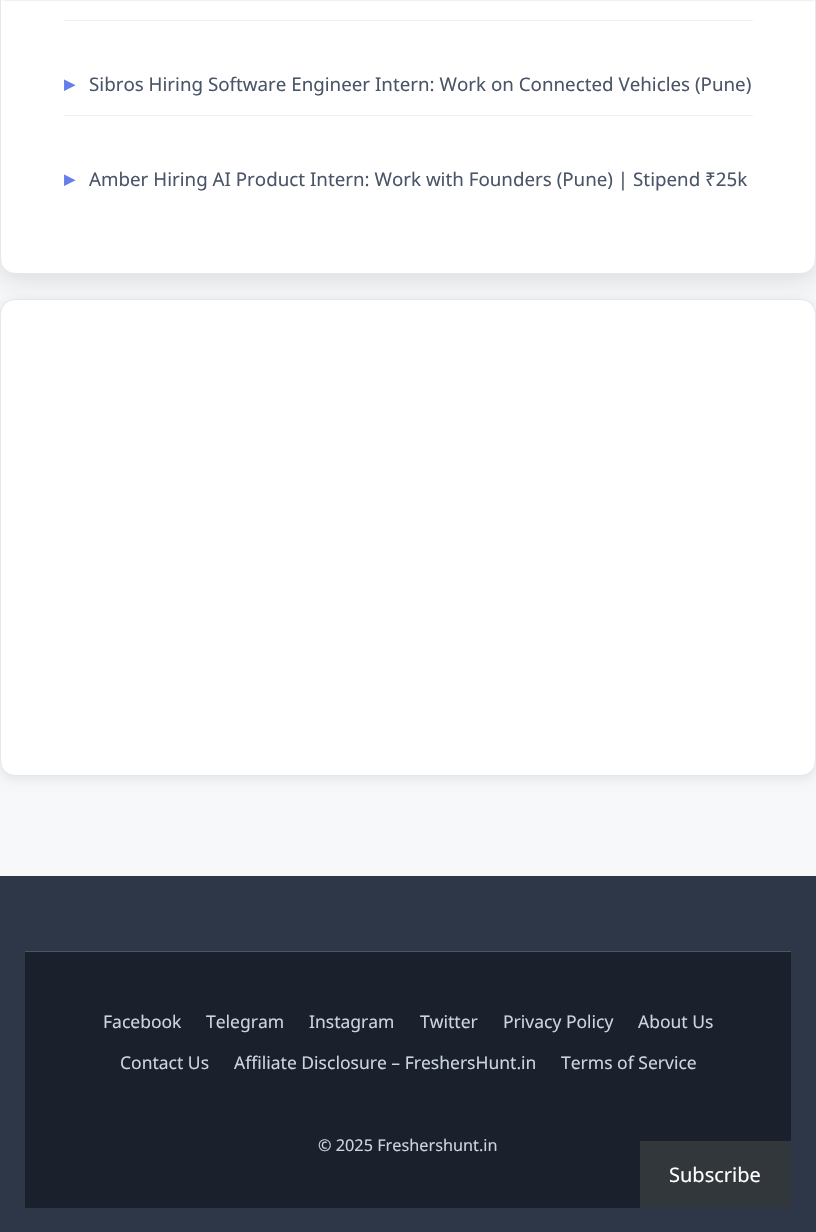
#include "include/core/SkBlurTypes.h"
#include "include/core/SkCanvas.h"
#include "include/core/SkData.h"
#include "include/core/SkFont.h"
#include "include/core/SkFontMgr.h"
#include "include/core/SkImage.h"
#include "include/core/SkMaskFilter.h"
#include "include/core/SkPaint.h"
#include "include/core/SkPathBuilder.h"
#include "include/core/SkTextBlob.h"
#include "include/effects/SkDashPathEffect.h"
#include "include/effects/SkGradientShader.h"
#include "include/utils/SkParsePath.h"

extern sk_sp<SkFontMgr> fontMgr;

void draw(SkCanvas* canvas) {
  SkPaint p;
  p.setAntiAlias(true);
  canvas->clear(SkColorSetRGB(247, 248, 249));
  p.setColor(SkColorSetARGB(31, 0, 0, 0));
  p.setMaskFilter(SkMaskFilter::MakeBlur(kNormal_SkBlurStyle, 12.5f));
  canvas->drawRoundRect(SkRect::MakeLTRB(0, -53, 816, 279), 15, 15, p);
  p.setMaskFilter(nullptr);
  p.setColor(SK_ColorWHITE);
  canvas->drawRoundRect(SkRect::MakeLTRB(0.5f, -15.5f, 815.5f, 273.5f), 14.5f, 14.5f, p);
  p.setStyle(SkPaint::kStroke_Style);
  p.setStrokeWidth(1);
  p.setColor(SkColorSetRGB(226, 232, 240));
  canvas->drawRoundRect(SkRect::MakeLTRB(0.5f, -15.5f, 815.5f, 273.5f), 14.5f, 14.5f, p);
  p.setStyle(SkPaint::kFill_Style);
  p.setColor(SkColorSetARGB(51, 0, 0, 0));
  p.setMaskFilter(SkMaskFilter::MakeBlur(kNormal_SkBlurStyle, 1));
  canvas->drawRect(SkRect::MakeLTRB(3, -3, 814, 0), p);
  p.setMaskFilter(nullptr);
  p.setColor(SkColorSetRGB(240, 240, 240));
  canvas->drawRect(SkRect::MakeLTRB(64, 20, 753, 21), p);
  canvas->drawRect(SkRect::MakeLTRB(64, 115, 753, 116), p);
  p.setColor(SkColorSetARGB(20, 0, 0, 0));
  p.setMaskFilter(SkMaskFilter::MakeBlur(kNormal_SkBlurStyle, 6));
  canvas->drawRoundRect(SkRect::MakeLTRB(0, 301, 816, 779), 15, 15, p);
  p.setMaskFilter(nullptr);
  p.setColor(SK_ColorWHITE);
  canvas->drawRoundRect(SkRect::MakeLTRB(0.5f, 299.5f, 815.5f, 775.5f), 14.5f, 14.5f, p);
  p.setStyle(SkPaint::kStroke_Style);
  p.setColor(SkColorSetRGB(226, 232, 240));
  canvas->drawRoundRect(SkRect::MakeLTRB(0.5f, 299.5f, 815.5f, 775.5f), 14.5f, 14.5f, p);
  p.setStyle(SkPaint::kFill_Style);
  p.setColor(SkColorSetRGB(45, 55, 72));
  canvas->drawRect(SkRect::MakeLTRB(0, 876, 816, 1232), p);
  p.setColor(SkColorSetRGB(26, 32, 44));
  canvas->drawRect(SkRect::MakeLTRB(25, 952, 791, 1208), p);
  p.setColor(SkColorSetRGB(74, 85, 104));
  canvas->drawRect(SkRect::MakeLTRB(25, 951, 791, 952), p);
  p.setColor(SkColorSetRGB(50, 55, 60));
  canvas->drawRect(SkRect::MakeLTRB(640, 1141, 791, 1208), p);
  canvas->save();
  canvas->clipRect(SkRect::MakeLTRB(64, 53, 753, 115));
  SkFont font1(fontMgr->matchFamilyStyle("DejaVu Sans", SkFontStyle::Bold()), 21);
  font1.setSubpixel(true);
  p.setColor(SkColorSetRGB(102, 126, 234));
  canvas->drawString("▸", 64, 91, font1, p);
  canvas->restore();
  SkFont font2(fontMgr->matchFamilyStyle("Noto Sans", SkFontStyle::Normal()), 18.75f);
  font2.setSubpixel(true);
  p.setColor(SkColorSetRGB(74, 85, 104));
  canvas->drawString("Sibros Hiring Software Engineer Intern: Work on Connected Vehicles (Pune)", 89, 91, font2, p);
  canvas->save();
  canvas->clipRect(SkRect::MakeLTRB(64, 148, 753, 210));
  p.setColor(SkColorSetRGB(102, 126, 234));
  canvas->drawString("▸", 64, 186, font1, p);
  canvas->restore();
  p.setColor(SkColorSetRGB(74, 85, 104));
  canvas->drawString("Amber Hiring AI Product Intern: Work with Founders (Pune) | Stipend ₹25k", 89, 186, font2, p);
  SkFont font3(fontMgr->matchFamilyStyle("Noto Sans", SkFontStyle::Normal()), 17.5f);
  font3.setSubpixel(true);
  p.setColor(SkColorSetRGB(203, 213, 224));
  canvas->drawString("Facebook", 103, 1028, font3, p);
  canvas->drawString("Telegram", 206, 1028, font3, p);
  canvas->drawString("Instagram", 309, 1028, font3, p);
  canvas->drawString("Twitter", 420, 1028, font3, p);
  canvas->drawString("Privacy Policy", 503, 1028, font3, p);
  canvas->drawString("About Us", 638, 1028, font3, p);
  canvas->drawString("Contact Us", 120, 1069, font3, p);
  canvas->drawString("Affiliate Disclosure – FreshersHunt.in", 234, 1069, font3, p);
  canvas->drawString("Terms of Service", 561, 1069, font3, p);
  SkFont font4(fontMgr->matchFamilyStyle("Noto Sans", SkFontStyle::Normal()), 16.25f);
  font4.setSubpixel(true);
  canvas->drawString("© 2025 Freshershunt.in", 318, 1151, font4, p);
  SkFont font5(fontMgr->matchFamilyStyle("Noto Sans", SkFontStyle::Normal()), 20);
  font5.setSubpixel(true);
  p.setColor(SK_ColorWHITE);
  canvas->drawString("Subscribe", 669, 1182, font5, p);
}
